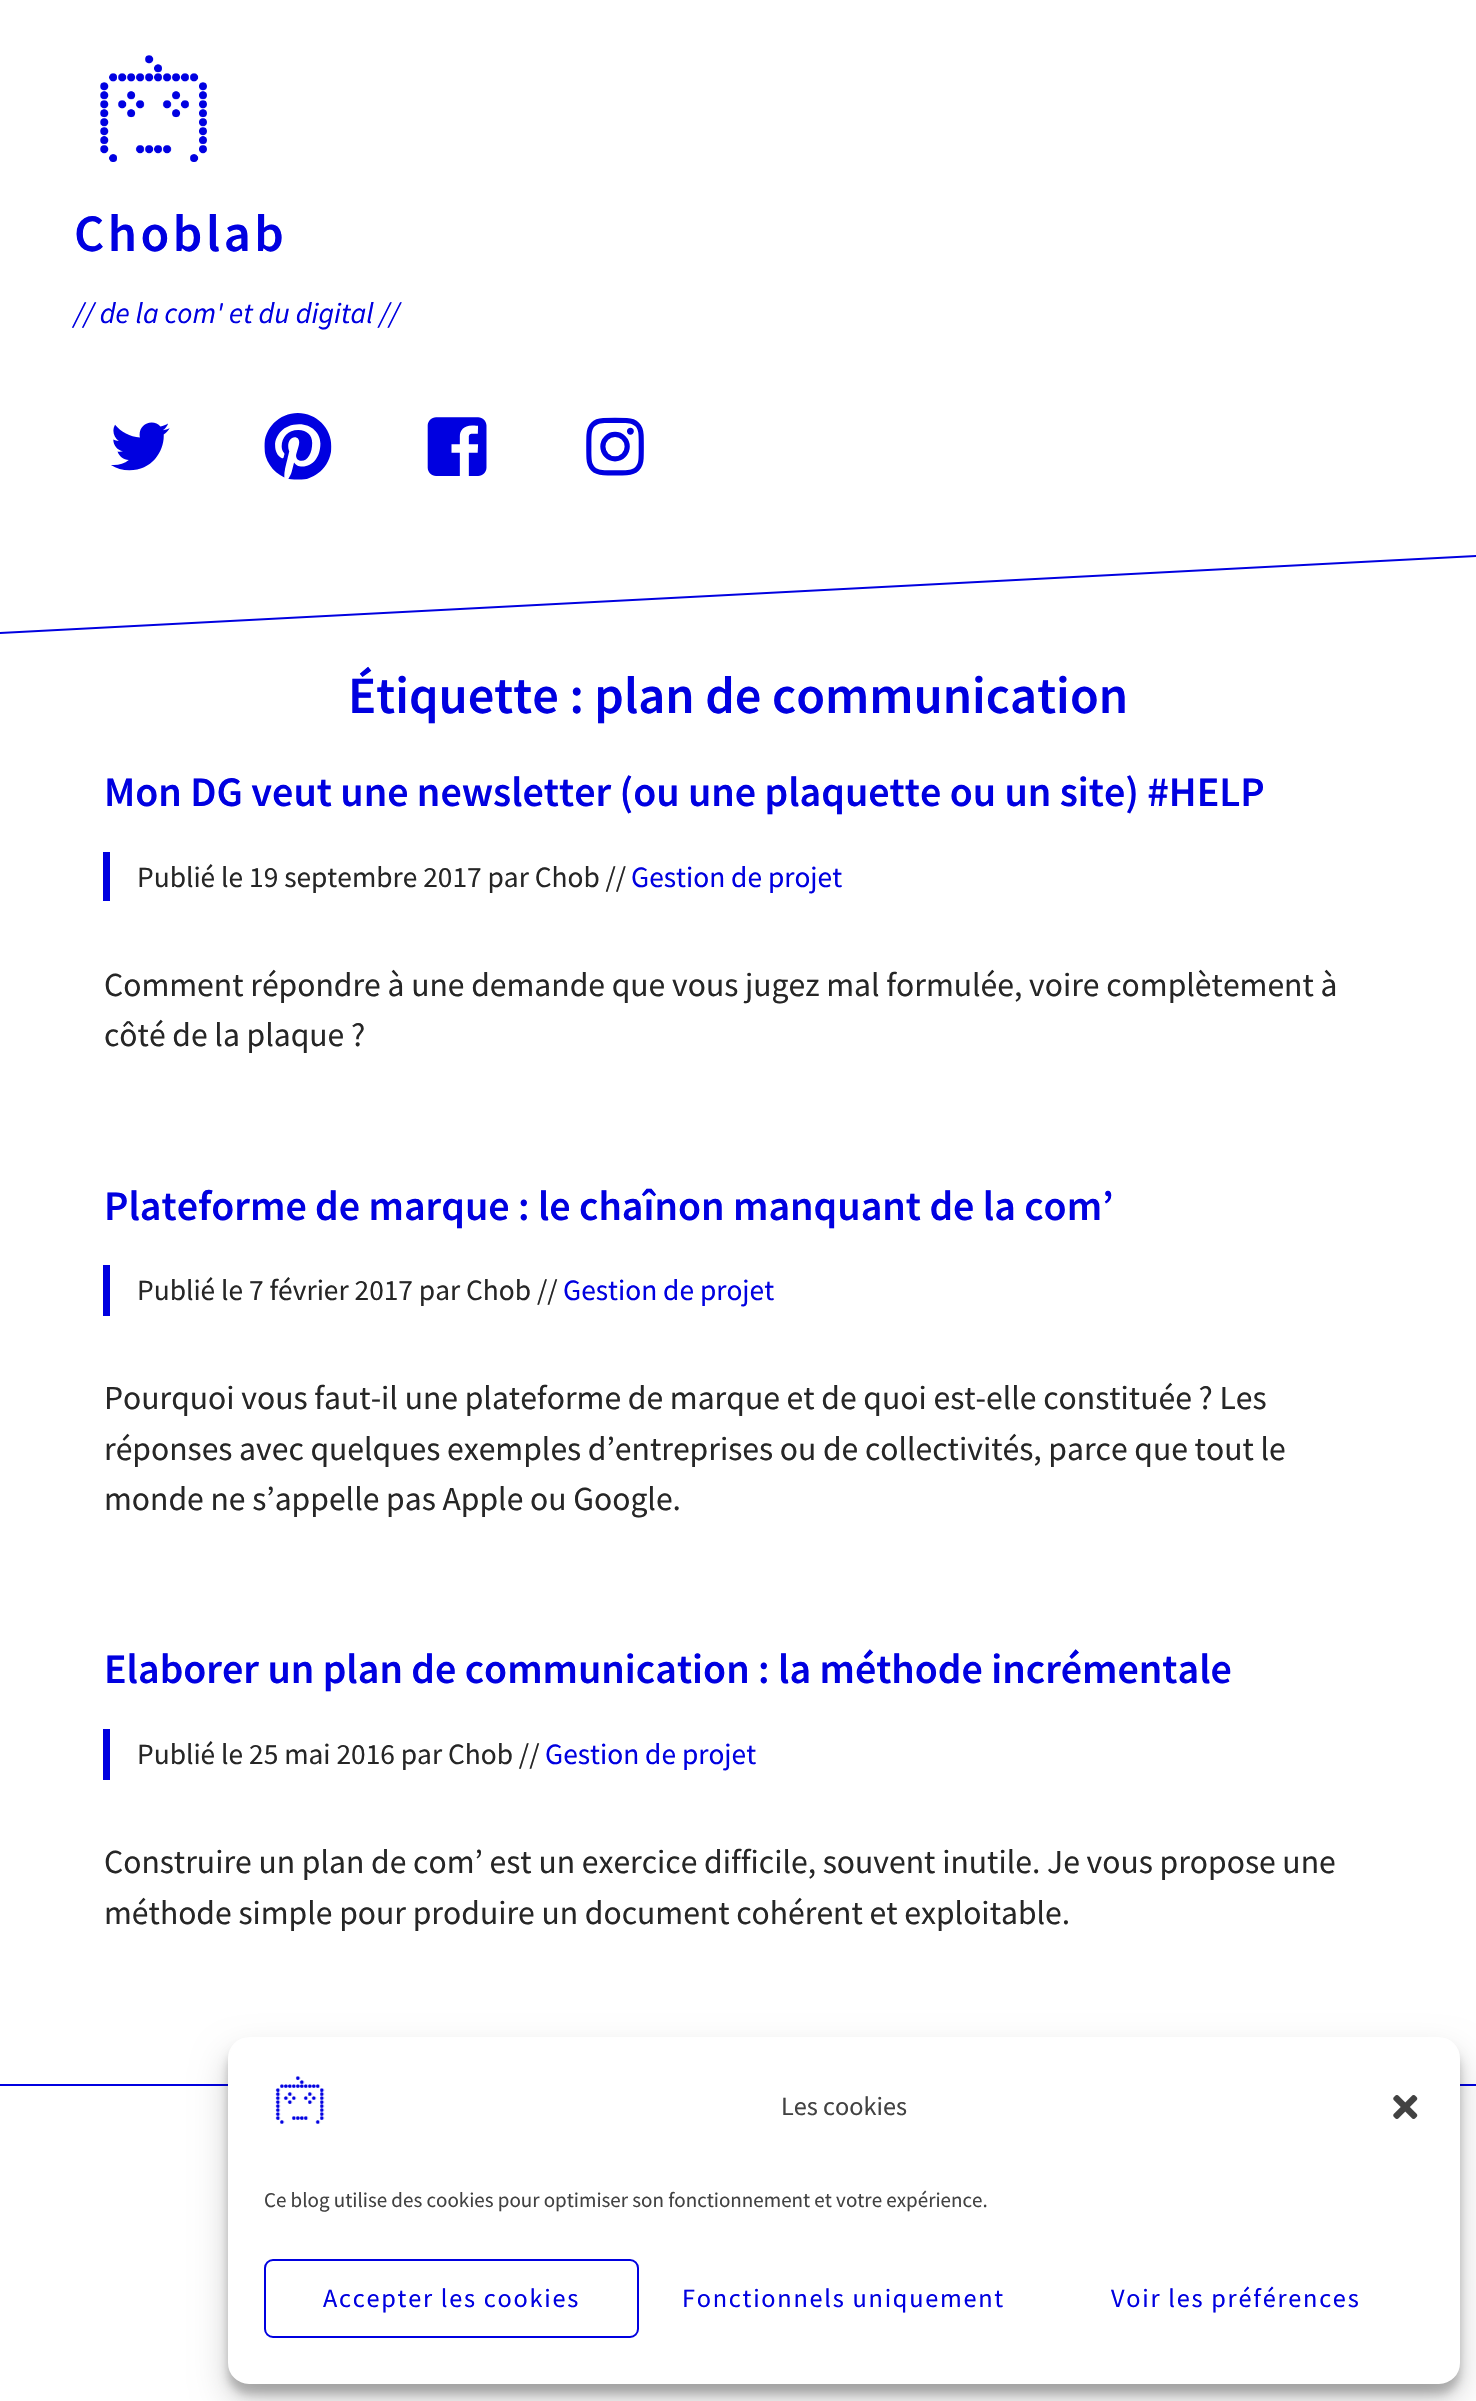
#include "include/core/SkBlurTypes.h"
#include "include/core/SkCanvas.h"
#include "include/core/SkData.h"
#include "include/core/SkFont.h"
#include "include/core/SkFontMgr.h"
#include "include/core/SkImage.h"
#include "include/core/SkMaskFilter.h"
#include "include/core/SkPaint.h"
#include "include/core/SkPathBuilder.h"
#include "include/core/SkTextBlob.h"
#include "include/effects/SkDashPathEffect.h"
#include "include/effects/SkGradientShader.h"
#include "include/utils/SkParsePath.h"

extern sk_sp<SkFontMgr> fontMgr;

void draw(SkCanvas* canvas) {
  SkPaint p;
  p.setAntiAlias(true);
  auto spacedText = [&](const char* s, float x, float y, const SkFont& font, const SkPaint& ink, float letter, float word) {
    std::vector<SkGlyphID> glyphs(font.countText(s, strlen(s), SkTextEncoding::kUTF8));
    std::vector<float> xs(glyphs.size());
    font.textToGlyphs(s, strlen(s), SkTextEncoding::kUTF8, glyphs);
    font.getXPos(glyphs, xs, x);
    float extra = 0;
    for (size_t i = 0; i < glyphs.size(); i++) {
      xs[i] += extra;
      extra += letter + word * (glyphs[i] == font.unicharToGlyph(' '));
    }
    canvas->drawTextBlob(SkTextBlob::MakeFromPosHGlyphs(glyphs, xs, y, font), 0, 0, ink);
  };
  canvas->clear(SK_ColorWHITE);
  p.setColor(SkColorSetRGB(0, 0, 224));
  canvas->drawPath(SkPathBuilder().moveTo(0, 632).lineTo(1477, 555).lineTo(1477, 557).lineTo(0, 634).close().detach(), p);
  canvas->drawImageRect(SkImages::DeferredFromEncodedData(SkData::MakeFromFileName("images/1.png")), SkRect::MakeLTRB(100, 55, 207, 162), SkSamplingOptions());
  canvas->drawImageRect(SkImages::DeferredFromEncodedData(SkData::MakeFromFileName("images/2.png")), SkRect::MakeLTRB(111, 422, 170, 471), SkSamplingOptions());
  canvas->drawImageRect(SkImages::DeferredFromEncodedData(SkData::MakeFromFileName("images/3.png")), SkRect::MakeLTRB(264, 413, 332, 480), SkSamplingOptions());
  canvas->drawImageRect(SkImages::DeferredFromEncodedData(SkData::MakeFromFileName("images/4.png")), SkRect::MakeLTRB(427, 417, 487, 476), SkSamplingOptions());
  canvas->drawImageRect(SkImages::DeferredFromEncodedData(SkData::MakeFromFileName("images/5.png")), SkRect::MakeLTRB(586, 417, 644, 476), SkSamplingOptions());
  canvas->drawRect(SkRect::MakeLTRB(103, 852, 110, 901), p);
  canvas->drawRect(SkRect::MakeLTRB(103, 1265, 110, 1316), p);
  canvas->drawRect(SkRect::MakeLTRB(103, 1729, 110, 1780), p);
  canvas->drawRect(SkRect::MakeLTRB(0, 2084, 1476, 2086), p);
  p.setColor(SkColorSetARGB(59, 0, 0, 0));
  p.setMaskFilter(SkMaskFilter::MakeBlur(kNormal_SkBlurStyle, 5));
  canvas->drawRoundRect(SkRect::MakeLTRB(228, 2048, 1460, 2394), 21, 21, p);
  p.setMaskFilter(nullptr);
  p.setColor(SkColorSetARGB(48, 0, 0, 0));
  p.setMaskFilter(SkMaskFilter::MakeBlur(kNormal_SkBlurStyle, 17.5f));
  canvas->drawRoundRect(SkRect::MakeLTRB(228, 2055, 1460, 2401), 21, 21, p);
  p.setMaskFilter(nullptr);
  p.setColor(SK_ColorWHITE);
  canvas->drawRoundRect(SkRect::MakeLTRB(229, 2038, 1459, 2383), 20, 20, p);
  p.setStyle(SkPaint::kStroke_Style);
  p.setStrokeWidth(2);
  canvas->drawRoundRect(SkRect::MakeLTRB(229, 2038, 1459, 2383), 20, 20, p);
  canvas->drawImageRect(SkImages::DeferredFromEncodedData(SkData::MakeFromFileName("images/6.png")), SkRect::MakeLTRB(275, 2076, 325, 2124), SkSamplingOptions());
  canvas->drawImageRect(SkImages::DeferredFromEncodedData(SkData::MakeFromFileName("images/7.png")), SkRect::MakeLTRB(1393, 2095, 1418, 2119), SkSamplingOptions());
  p.setColor(SkColorSetRGB(0, 0, 224));
  canvas->drawRoundRect(SkRect::MakeLTRB(265, 2260, 638, 2337), 8, 8, p);
  SkFont font1(fontMgr->matchFamilyStyle("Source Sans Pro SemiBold", SkFontStyle(600, SkFontStyle::kNormal_Width, SkFontStyle::kUpright_Slant)), 52.5f);
  font1.setSubpixel(true);
  p.setStyle(SkPaint::kFill_Style);
  spacedText("Choblab", 74, 251, font1, p, 3.5f, 0);
  SkFont font2(fontMgr->matchFamilyStyle("Source Sans Pro", SkFontStyle::Italic()), 29.4f);
  font2.setSubpixel(true);
  canvas->drawString("// de la com' et du digital //", 74, 323, font2, p);
  canvas->drawString("Étiquette : plan de communication", 348, 713, font1, p);
  SkFont font3(fontMgr->matchFamilyStyle("Source Sans Pro SemiBold", SkFontStyle(600, SkFontStyle::kNormal_Width, SkFontStyle::kUpright_Slant)), 42);
  font3.setSubpixel(true);
  canvas->drawString("Mon DG veut une newsletter (ou une plaquette ou un site) #HELP", 104, 806, font3, p);
  SkFont font4(fontMgr->matchFamilyStyle("Source Sans Pro", SkFontStyle::Normal()), 29.4f);
  font4.setSubpixel(true);
  p.setColor(SkColorSetRGB(38, 38, 38));
  canvas->drawString("Publié le 19 septembre 2017 par Chob //", 137, 887, font4, p);
  p.setColor(SkColorSetRGB(0, 0, 224));
  canvas->drawString("Gestion de projet", 631, 887, font4, p);
  SkFont font5(fontMgr->matchFamilyStyle("Source Sans Pro", SkFontStyle::Normal()), 33.6f);
  font5.setSubpixel(true);
  p.setColor(SkColorSetRGB(38, 38, 38));
  canvas->drawString("Comment répondre à une demande que vous jugez mal formulée, voire complètement à", 104, 996, font5, p);
  canvas->drawString("côté de la plaque ?", 104, 1046, font5, p);
  p.setColor(SkColorSetRGB(0, 0, 224));
  canvas->drawString("Plateforme de marque : le chaînon manquant de la com’", 104, 1220, font3, p);
  p.setColor(SkColorSetRGB(38, 38, 38));
  canvas->drawString("Publié le 7 février 2017 par Chob //", 137, 1300, font4, p);
  p.setColor(SkColorSetRGB(0, 0, 224));
  canvas->drawString("Gestion de projet", 563, 1300, font4, p);
  p.setColor(SkColorSetRGB(38, 38, 38));
  canvas->drawString("Pourquoi vous faut-il une plateforme de marque et de quoi est-elle constituée ? Les", 104, 1409, font5, p);
  canvas->drawString("réponses avec quelques exemples d’entreprises ou de collectivités, parce que tout le", 104, 1460, font5, p);
  canvas->drawString("monde ne s’appelle pas Apple ou Google.", 104, 1510, font5, p);
  p.setColor(SkColorSetRGB(0, 0, 224));
  canvas->drawString("Elaborer un plan de communication : la méthode incrémentale", 104, 1683, font3, p);
  p.setColor(SkColorSetRGB(38, 38, 38));
  canvas->drawString("Publié le 25 mai 2016 par Chob //", 137, 1764, font4, p);
  p.setColor(SkColorSetRGB(0, 0, 224));
  canvas->drawString("Gestion de projet", 545, 1764, font4, p);
  p.setColor(SkColorSetRGB(38, 38, 38));
  canvas->drawString("Construire un plan de com’ est un exercice difficile, souvent inutile. Je vous propose une", 104, 1873, font5, p);
  canvas->drawString("méthode simple pour produire un document cohérent et exploitable.", 104, 1924, font5, p);
  SkFont font6(fontMgr->matchFamilyStyle("Source Sans Pro", SkFontStyle::Normal()), 26.25f);
  font6.setSubpixel(true);
  p.setColor(SkColorSetRGB(66, 66, 66));
  canvas->drawString("Les cookies", 781, 2115, font6, p);
  SkFont font7(fontMgr->matchFamilyStyle("Source Sans Pro", SkFontStyle::Normal()), 21);
  font7.setSubpixel(true);
  canvas->drawString("Ce blog utilise des cookies pour optimiser son fonctionnement et votre expérience.", 264, 2207, font7, p);
  p.setColor(SkColorSetRGB(0, 0, 224));
  spacedText("Accepter les cookies", 323, 2307, font6, p, 1.75f, 0);
  spacedText("Fonctionnels uniquement", 682, 2307, font6, p, 1.75f, 0);
  spacedText("Voir les préférences", 1111, 2307, font6, p, 1.75f, 0);
}
